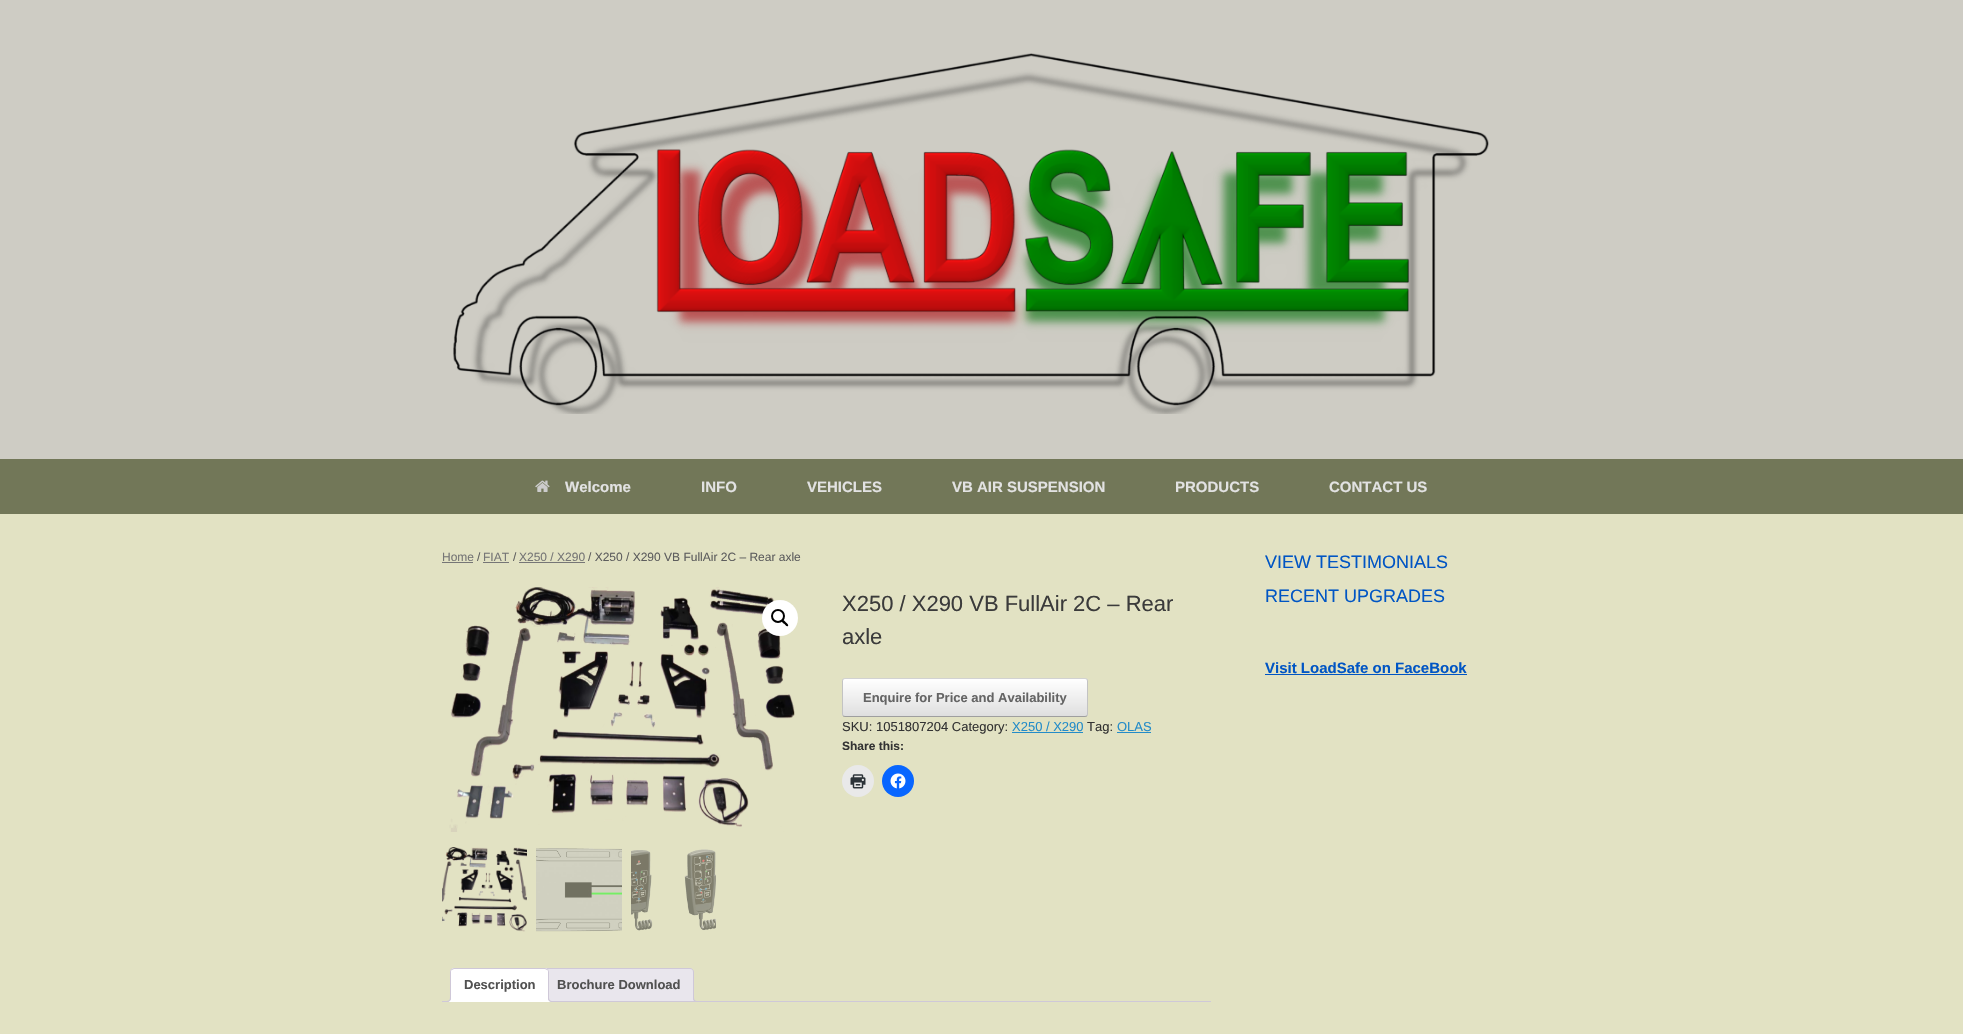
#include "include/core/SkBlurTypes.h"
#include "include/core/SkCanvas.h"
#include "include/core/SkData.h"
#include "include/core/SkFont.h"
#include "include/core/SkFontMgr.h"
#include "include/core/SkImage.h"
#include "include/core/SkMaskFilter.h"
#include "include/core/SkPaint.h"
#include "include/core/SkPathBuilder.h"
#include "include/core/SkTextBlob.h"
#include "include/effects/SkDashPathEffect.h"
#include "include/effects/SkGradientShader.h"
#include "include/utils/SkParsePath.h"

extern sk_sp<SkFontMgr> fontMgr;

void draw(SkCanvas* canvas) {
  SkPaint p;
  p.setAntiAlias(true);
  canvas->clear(SkColorSetRGB(206, 204, 196));
  canvas->drawImageRect(SkImages::DeferredFromEncodedData(SkData::MakeFromFileName("images/1.png")), SkRect::MakeLTRB(453, 53, 1489, 414), SkSamplingOptions());
  p.setColor(SkColorSetRGB(114, 119, 88));
  canvas->drawRect(SkRect::MakeLTRB(0, 459, 1963, 514), p);
  canvas->drawImageRect(SkImages::DeferredFromEncodedData(SkData::MakeFromFileName("images/2.png")), SkRect::MakeLTRB(535, 480, 550, 492), SkSamplingOptions());
  p.setColor(SkColorSetRGB(226, 226, 195));
  canvas->drawRect(SkRect::MakeLTRB(0, 514, 1963, 1034), p);
  p.setColor(SkColorSetRGB(118, 118, 118));
  canvas->drawRect(SkRect::MakeLTRB(442, 562, 473, 563), p);
  canvas->drawRect(SkRect::MakeLTRB(483, 562, 509, 563), p);
  canvas->drawRect(SkRect::MakeLTRB(519, 562, 585, 563), p);
  canvas->drawImageRect(SkImages::DeferredFromEncodedData(SkData::MakeFromFileName("images/3.png")), SkRect::MakeLTRB(449, 587, 795, 832), SkSamplingOptions());
  p.setColor(SK_ColorWHITE);
  canvas->drawCircle(780, 618, 18, p);
  p.setStyle(SkPaint::kStroke_Style);
  p.setStrokeWidth(2);
  p.setColor(SK_ColorBLACK);
  canvas->drawCircle(778, 616, 6, p);
  p.setStyle(SkPaint::kFill_Style);
  canvas->drawPath(SkPathBuilder().moveTo(782, 620.5f).cubicTo(783.5f, 619, 785, 622, 786, 622.5f).cubicTo(786.5f, 623, 789, 625, 788, 626).cubicTo(786.5f, 627, 785, 624.5f, 784.5f, 624).cubicTo(783.5f, 623.5f, 781, 621.5f, 782, 620.5f).close().detach(), p);
  canvas->drawImageRect(SkImages::DeferredFromEncodedData(SkData::MakeFromFileName("images/4.png")), SkRect::MakeLTRB(442, 847, 527, 932), SkSamplingOptions());
  canvas->drawImageRect(SkImages::DeferredFromEncodedData(SkData::MakeFromFileName("images/5.png")), SkRect::MakeLTRB(536, 848, 622, 932), SkSamplingOptions());
  canvas->drawImageRect(SkImages::DeferredFromEncodedData(SkData::MakeFromFileName("images/6.png")), SkRect::MakeLTRB(631, 849, 716, 931), SkSamplingOptions());
  canvas->save();
  canvas->clipPath(SkPathBuilder().moveTo(845, 678).lineTo(1085, 678).cubicTo(1086.5f, 678, 1088, 679.5f, 1088, 681).lineTo(1088, 714).cubicTo(1088, 715.5f, 1086.5f, 717, 1085, 717).lineTo(845, 717).cubicTo(843.5f, 717, 842, 715.5f, 842, 714).lineTo(842, 681).cubicTo(842, 679.5f, 843.5f, 678, 845, 678).close().detach(), true);
  {
    const SkColor colors[] = {SkColorSetRGB(223, 223, 223), SK_ColorWHITE};
    const float stops[] = {0, 1};
    const SkPoint ends[] = {{843, 716}, {843, 679}};
    p.setShader(SkGradientShader::MakeLinear(ends, colors, stops, 2, SkTileMode::kClamp));
    p.setAlpha(255);
  }
  canvas->drawRect(SkRect::MakeLTRB(842, 679, 1088, 716), p);
  canvas->restore();
  p.setStyle(SkPaint::kStroke_Style);
  p.setStrokeWidth(1);
  p.setShader(nullptr);
  p.setColor(SkColorSetRGB(210, 210, 210));
  canvas->drawPath(SkPathBuilder().moveTo(843, 679).lineTo(845, 678.5f).lineTo(1085, 678.5f).lineTo(1087, 679).detach(), p);
  p.setColor(SkColorSetRGB(195, 195, 195));
  canvas->drawPath(SkPathBuilder().moveTo(1087, 679).cubicTo(1087, 679.5f, 1087.5f, 680.5f, 1087.5f, 681).lineTo(1087.5f, 714).cubicTo(1087.5f, 714.5f, 1087, 715.5f, 1087, 716).detach(), p);
  p.setColor(SkColorSetRGB(159, 159, 159));
  canvas->drawPath(SkPathBuilder().moveTo(1087, 716).lineTo(1085, 716.5f).lineTo(845, 716.5f).lineTo(843, 716).detach(), p);
  p.setColor(SkColorSetRGB(195, 195, 195));
  canvas->drawPath(SkPathBuilder().moveTo(843, 716).cubicTo(843, 715.5f, 842.5f, 714.5f, 842.5f, 714).lineTo(842.5f, 681).cubicTo(842.5f, 680.5f, 843, 679.5f, 843, 679).detach(), p);
  p.setStyle(SkPaint::kFill_Style);
  p.setColor(SkColorSetRGB(36, 140, 200));
  canvas->drawRect(SkRect::MakeLTRB(1012, 732, 1083, 733), p);
  canvas->drawRect(SkRect::MakeLTRB(1117, 732, 1151, 733), p);
  p.setColor(SkColorSetRGB(233, 233, 233));
  canvas->drawCircle(858, 781, 16, p);
  canvas->drawImageRect(SkImages::DeferredFromEncodedData(SkData::MakeFromFileName("images/7.png")), SkRect::MakeLTRB(850, 774, 866, 789), SkSamplingOptions());
  p.setColor(SkColorSetRGB(8, 102, 255));
  canvas->drawCircle(898, 781, 16, p);
  canvas->drawImageRect(SkImages::DeferredFromEncodedData(SkData::MakeFromFileName("images/8.png")), SkRect::MakeLTRB(890, 773, 906, 789), SkSamplingOptions());
  p.setColor(SkColorSetRGB(233, 230, 237));
  canvas->drawPath(SkPathBuilder().moveTo(547, 968.5f).lineTo(690, 968.5f).cubicTo(692, 968.5f, 693.5f, 970, 693.5f, 972).lineTo(693.5f, 1001.5f).lineTo(543.5f, 1001.5f).lineTo(543.5f, 972).cubicTo(543.5f, 970, 545, 968.5f, 547, 968.5f).close().detach(), p);
  p.setStyle(SkPaint::kStroke_Style);
  p.setColor(SkColorSetRGB(207, 200, 216));
  canvas->drawPath(SkPathBuilder().moveTo(547, 968.5f).lineTo(690, 968.5f).cubicTo(692, 968.5f, 693.5f, 970, 693.5f, 972).lineTo(693.5f, 1001.5f).lineTo(543.5f, 1001.5f).lineTo(543.5f, 972).cubicTo(543.5f, 970, 545, 968.5f, 547, 968.5f).close().detach(), p);
  canvas->save();
  canvas->clipRect(SkRect::MakeLTRB(442, 968, 1211, 1002));
  p.setStyle(SkPaint::kFill_Style);
  p.setColor(SkColorSetRGB(233, 230, 237));
  canvas->drawPath(SkPathBuilder().moveTo(691, 999).cubicTo(691, 1002.5f, 692.5f, 1004, 696, 1004).lineTo(696, 1002).cubicTo(694.5f, 1001.5f, 693.5f, 1000.5f, 693, 999).close().detach(), p);
  canvas->restore();
  p.setColor(SkColorSetRGB(207, 200, 216));
  canvas->drawPath(SkPathBuilder(SkPathFillType::kEvenOdd).moveTo(693, 997).lineTo(698, 997).lineTo(698, 1002).cubicTo(695.5f, 1002, 693, 1001, 693, 998).close().moveTo(694, 997).lineTo(698, 997).lineTo(698, 1001).cubicTo(696, 1001, 694, 1000.5f, 694, 998).close().detach(), p);
  canvas->drawRect(SkRect::MakeLTRB(442, 1001, 1211, 1002), p);
  p.setColor(SK_ColorWHITE);
  canvas->drawPath(SkPathBuilder().moveTo(454, 968).lineTo(545, 968).cubicTo(547, 968, 549, 970, 549, 972).lineTo(549, 1002).lineTo(450, 1002).lineTo(450, 972).cubicTo(450, 970, 452, 968, 454, 968).close().detach(), p);
  p.setColor(SkColorSetRGB(207, 200, 216));
  canvas->drawPath(SkPathBuilder().moveTo(454, 968).lineTo(451, 969).lineTo(452, 970).lineTo(454, 969).lineTo(545, 969).lineTo(547, 970).lineTo(548, 969).lineTo(545, 968).close().detach(), p);
  canvas->drawPath(SkPathBuilder().moveTo(549, 1002).lineTo(549, 972).cubicTo(549, 971, 548.5f, 970, 548, 969).lineTo(547, 970).cubicTo(548, 970, 548, 971, 548, 972).lineTo(548, 1001).close().detach(), p);
  p.setColor(SK_ColorWHITE);
  canvas->drawPath(SkPathBuilder().moveTo(549, 1002).lineTo(548, 1001).lineTo(451, 1001).lineTo(450, 1002).close().detach(), p);
  p.setColor(SkColorSetRGB(207, 200, 216));
  canvas->drawPath(SkPathBuilder().moveTo(450, 1002).lineTo(451, 1001).lineTo(451, 972).cubicTo(451, 971, 451, 970, 452, 970).lineTo(451, 969).cubicTo(450.5f, 970, 450, 971, 450, 972).close().detach(), p);
  canvas->save();
  canvas->clipRect(SkRect::MakeLTRB(442, 968, 1211, 1002));
  p.setColor(SK_ColorWHITE);
  canvas->drawPath(SkPathBuilder().moveTo(448, 1002).lineTo(448, 1004).cubicTo(451.5f, 1004, 453, 1002.5f, 453, 999).lineTo(451, 999).cubicTo(450.5f, 1000.5f, 449.5f, 1001.5f, 448, 1002).close().detach(), p);
  canvas->restore();
  p.setColor(SkColorSetRGB(207, 200, 216));
  canvas->drawPath(SkPathBuilder(SkPathFillType::kEvenOdd).moveTo(446, 997).lineTo(451, 997).cubicTo(451, 1000.5f, 449.5f, 1002, 446, 1002).close().moveTo(446, 997).lineTo(450, 997).cubicTo(450, 1000, 449, 1001, 446, 1001).close().detach(), p);
  canvas->save();
  canvas->clipRect(SkRect::MakeLTRB(442, 968, 1211, 1002));
  p.setColor(SK_ColorWHITE);
  canvas->drawPath(SkPathBuilder().moveTo(546, 999).cubicTo(546, 1002.5f, 547.5f, 1004, 551, 1004).lineTo(551, 1002).cubicTo(549.5f, 1001.5f, 548.5f, 1000.5f, 548, 999).close().detach(), p);
  canvas->restore();
  p.setColor(SkColorSetRGB(207, 200, 216));
  canvas->drawPath(SkPathBuilder(SkPathFillType::kEvenOdd).moveTo(548, 997).lineTo(553, 997).lineTo(553, 1002).cubicTo(550.5f, 1002, 548, 1001, 548, 998).close().moveTo(549, 997).lineTo(553, 997).lineTo(553, 1001).cubicTo(551, 1001, 549, 1000.5f, 549, 998).close().detach(), p);
  p.setColor(SkColorSetRGB(0, 85, 196));
  canvas->drawRect(SkRect::MakeLTRB(1265, 674, 1467, 675), p);
  SkFont font1(fontMgr->matchFamilyStyle("Liberation Sans", SkFontStyle::Bold()), 15);
  font1.setSubpixel(true);
  p.setColor(SkColorSetRGB(226, 226, 226));
  canvas->drawString("Welcome", 565, 492, font1, p);
  canvas->drawString("INFO", 701, 492, font1, p);
  canvas->drawString("VEHICLES", 807, 492, font1, p);
  canvas->drawString("VB AIR SUSPENSION", 952, 492, font1, p);
  canvas->drawString("PRODUCTS", 1175, 492, font1, p);
  canvas->drawString("CONTACT US", 1329, 492, font1, p);
  SkFont font2(fontMgr->matchFamilyStyle("Liberation Sans", SkFontStyle::Normal()), 12);
  font2.setSubpixel(true);
  p.setColor(SkColorSetRGB(118, 118, 118));
  canvas->drawString("Home", 442, 561, font2, p);
  p.setColor(SkColorSetRGB(94, 94, 94));
  canvas->drawString("/", 477, 561, font2, p);
  p.setColor(SkColorSetRGB(118, 118, 118));
  canvas->drawString("FIAT", 483, 561, font2, p);
  p.setColor(SkColorSetRGB(94, 94, 94));
  canvas->drawString("/", 513, 561, font2, p);
  p.setColor(SkColorSetRGB(118, 118, 118));
  canvas->drawString("X250 / X290", 519, 561, font2, p);
  p.setColor(SkColorSetRGB(94, 94, 94));
  canvas->drawString("/ X250 / X290 VB FullAir 2C – Rear axle", 588, 561, font2, p);
  SkFont font3(fontMgr->matchFamilyStyle("Liberation Sans", SkFontStyle::Normal()), 22);
  font3.setSubpixel(true);
  p.setColor(SkColorSetRGB(59, 59, 59));
  canvas->drawString("X250 / X290 VB FullAir 2C – Rear", 842, 611, font3, p);
  canvas->drawString("axle", 842, 644, font3, p);
  SkFont font4(fontMgr->matchFamilyStyle("Liberation Sans", SkFontStyle::Bold()), 13);
  font4.setSubpixel(true);
  p.setColor(SkColorSetRGB(100, 100, 100));
  canvas->drawString("Enquire for Price and Availability", 863, 702, font4, p);
  SkFont font5(fontMgr->matchFamilyStyle("Liberation Sans", SkFontStyle::Normal()), 13);
  font5.setSubpixel(true);
  p.setColor(SkColorSetRGB(51, 51, 51));
  canvas->drawString("SKU: 1051807204 Category:", 842, 731, font5, p);
  p.setColor(SkColorSetRGB(36, 140, 200));
  canvas->drawString("X250 / X290", 1012, 731, font5, p);
  p.setColor(SkColorSetRGB(51, 51, 51));
  canvas->drawString("Tag:", 1087, 731, font5, p);
  p.setColor(SkColorSetRGB(36, 140, 200));
  canvas->drawString("OLAS", 1117, 731, font5, p);
  SkFont font6(fontMgr->matchFamilyStyle("Liberation Sans", SkFontStyle::Bold()), 12);
  font6.setSubpixel(true);
  p.setColor(SkColorSetRGB(51, 51, 51));
  canvas->drawString("Share this:", 842, 750, font6, p);
  p.setColor(SkColorSetRGB(81, 81, 81));
  canvas->drawString("Description", 464, 989, font4, p);
  canvas->drawString("Brochure Download", 557, 989, font4, p);
  SkFont font7(fontMgr->matchFamilyStyle("Liberation Sans", SkFontStyle::Normal()), 18);
  font7.setSubpixel(true);
  p.setColor(SkColorSetRGB(0, 85, 196));
  canvas->drawString("VIEW TESTIMONIALS", 1265, 568, font7, p);
  canvas->drawString("RECENT UPGRADES", 1265, 602, font7, p);
  canvas->drawString("Visit LoadSafe on FaceBook", 1265, 673, font1, p);
}
